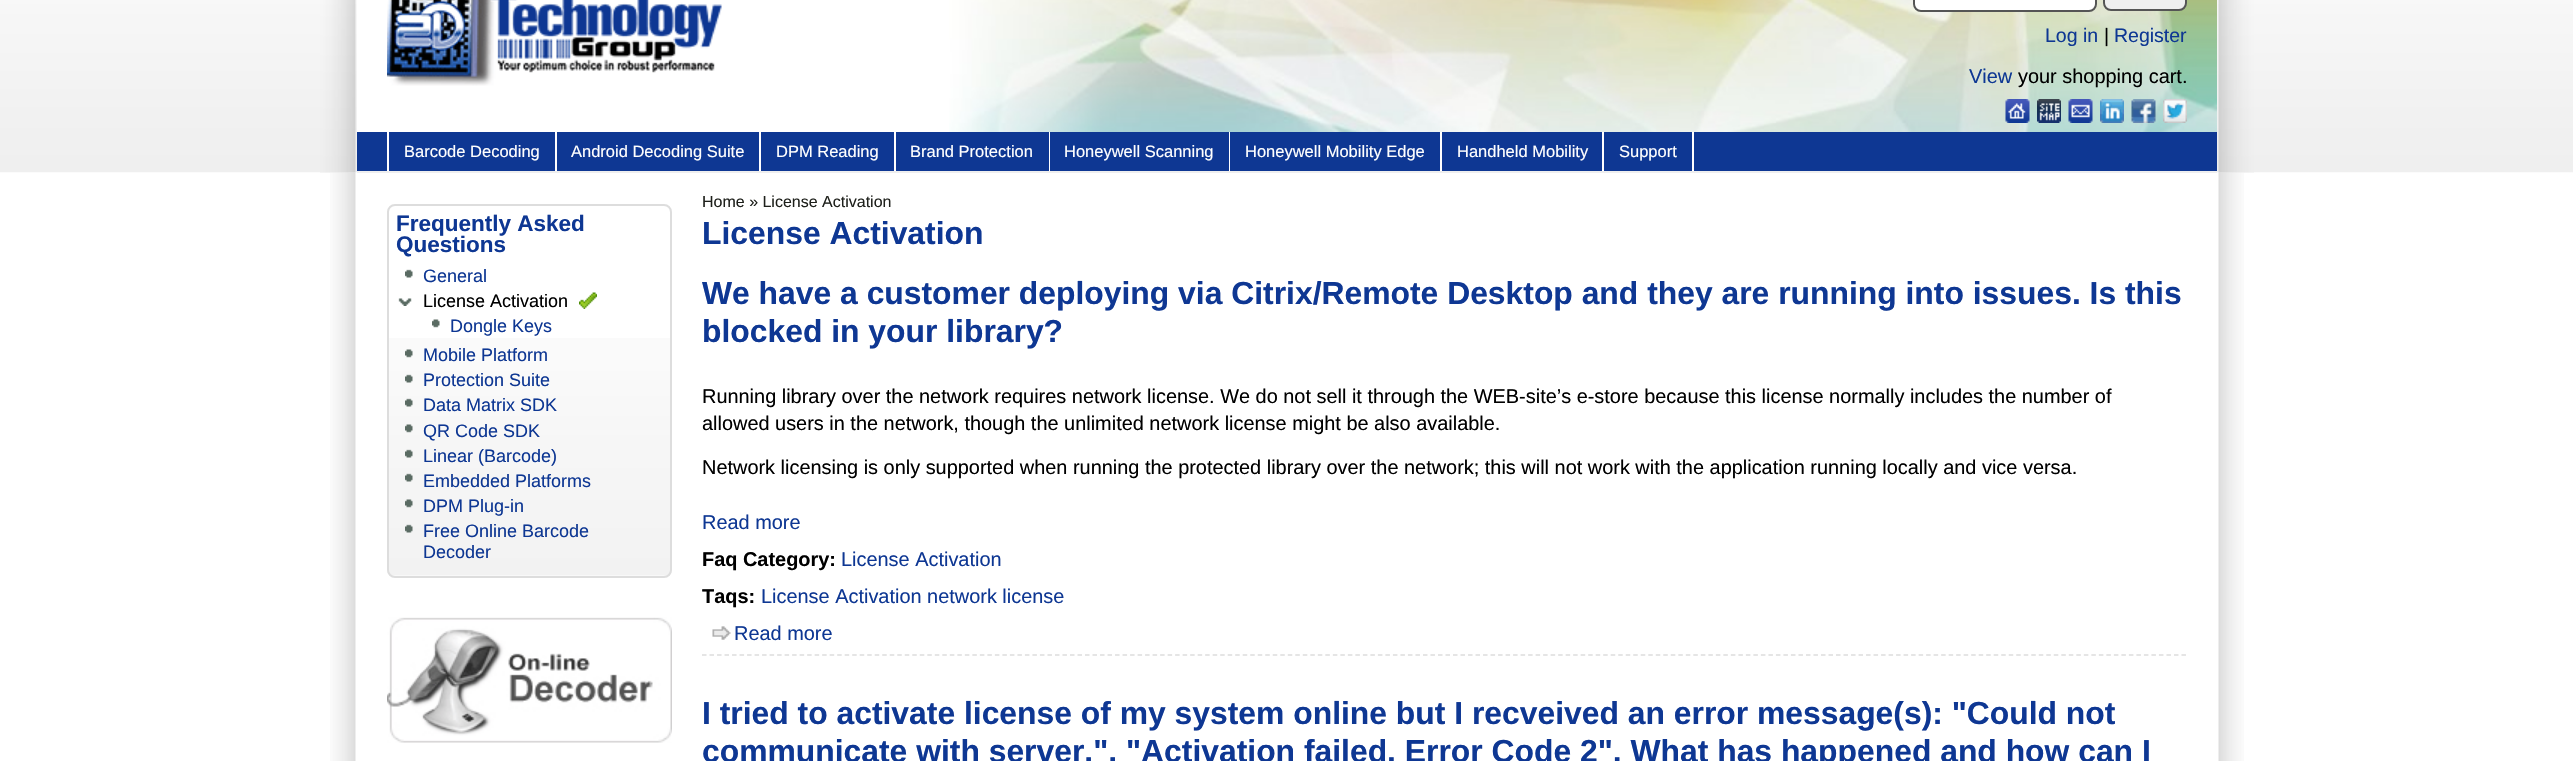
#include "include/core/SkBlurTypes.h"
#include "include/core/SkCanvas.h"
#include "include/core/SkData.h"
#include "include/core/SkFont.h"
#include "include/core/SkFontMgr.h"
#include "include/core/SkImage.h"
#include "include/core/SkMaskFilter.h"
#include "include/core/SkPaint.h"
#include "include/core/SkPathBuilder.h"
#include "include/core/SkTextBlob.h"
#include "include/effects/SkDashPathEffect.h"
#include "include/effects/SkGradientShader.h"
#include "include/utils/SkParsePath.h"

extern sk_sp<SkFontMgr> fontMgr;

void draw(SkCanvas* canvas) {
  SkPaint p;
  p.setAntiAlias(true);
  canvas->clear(SK_ColorWHITE);
  canvas->drawImageRect(SkImages::DeferredFromEncodedData(SkData::MakeFromFileName("images/1.png")), SkRect::MakeLTRB(0, 0, 2573, 173), SkSamplingOptions());
  canvas->drawImageRect(SkImages::DeferredFromEncodedData(SkData::MakeFromFileName("images/12.png")), SkRect::MakeLTRB(330, 172, 356, 761), SkSamplingOptions());
  canvas->drawImageRect(SkImages::DeferredFromEncodedData(SkData::MakeFromFileName("images/2.png")), SkRect::MakeLTRB(320, 0, 356, 173), SkSamplingOptions());
  canvas->drawImageRect(SkImages::DeferredFromEncodedData(SkData::MakeFromFileName("images/13.png")), SkRect::MakeLTRB(2218, 172, 2244, 761), SkSamplingOptions());
  canvas->drawImageRect(SkImages::DeferredFromEncodedData(SkData::MakeFromFileName("images/3.png")), SkRect::MakeLTRB(2218, 0, 2254, 173), SkSamplingOptions());
  p.setColor(SK_ColorWHITE);
  canvas->drawRect(SkRect::MakeLTRB(357, 0, 949, 132), p);
  canvas->drawImageRect(SkImages::DeferredFromEncodedData(SkData::MakeFromFileName("images/4.png")), SkRect::MakeLTRB(949, 0, 2217, 132), SkSamplingOptions());
  p.setColor(SkColorSetRGB(238, 238, 238));
  canvas->drawRect(SkRect::MakeLTRB(357, 172, 2217, 173), p);
  canvas->drawImageRect(SkImages::DeferredFromEncodedData(SkData::MakeFromFileName("images/5.png")), SkRect::MakeLTRB(387, 0, 722, 86), SkSamplingOptions());
  p.setColor(SK_ColorWHITE);
  canvas->drawRoundRect(SkRect::MakeLTRB(1914, -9, 2096, 11), 7, 7, p);
  p.setStyle(SkPaint::kStroke_Style);
  p.setStrokeWidth(2);
  p.setColor(SkColorSetRGB(85, 85, 85));
  canvas->drawRoundRect(SkRect::MakeLTRB(1914, -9, 2096, 11), 7, 7, p);
  p.setStyle(SkPaint::kFill_Style);
  p.setColor(SkColorSetRGB(239, 239, 239));
  canvas->drawRoundRect(SkRect::MakeLTRB(2104, -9, 2186, 10), 7, 7, p);
  p.setStyle(SkPaint::kStroke_Style);
  p.setColor(SkColorSetRGB(85, 85, 85));
  canvas->drawRoundRect(SkRect::MakeLTRB(2104, -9, 2186, 10), 7, 7, p);
  canvas->drawImageRect(SkImages::DeferredFromEncodedData(SkData::MakeFromFileName("images/6.png")), SkRect::MakeLTRB(2005, 99, 2030, 123), SkSamplingOptions());
  canvas->drawImageRect(SkImages::DeferredFromEncodedData(SkData::MakeFromFileName("images/7.png")), SkRect::MakeLTRB(2037, 99, 2061, 123), SkSamplingOptions());
  canvas->drawImageRect(SkImages::DeferredFromEncodedData(SkData::MakeFromFileName("images/8.png")), SkRect::MakeLTRB(2068, 99, 2093, 123), SkSamplingOptions());
  canvas->drawImageRect(SkImages::DeferredFromEncodedData(SkData::MakeFromFileName("images/9.png")), SkRect::MakeLTRB(2100, 99, 2124, 123), SkSamplingOptions());
  canvas->drawImageRect(SkImages::DeferredFromEncodedData(SkData::MakeFromFileName("images/10.png")), SkRect::MakeLTRB(2131, 99, 2156, 123), SkSamplingOptions());
  canvas->drawImageRect(SkImages::DeferredFromEncodedData(SkData::MakeFromFileName("images/11.png")), SkRect::MakeLTRB(2163, 99, 2187, 123), SkSamplingOptions());
  p.setStyle(SkPaint::kFill_Style);
  p.setColor(SkColorSetRGB(14, 55, 147));
  canvas->drawRect(SkRect::MakeLTRB(357, 132, 2217, 171), p);
  p.setColor(SkColorSetRGB(255, 254, 255));
  canvas->drawRect(SkRect::MakeLTRB(555, 132, 557, 171), p);
  canvas->drawRect(SkRect::MakeLTRB(387, 132, 389, 171), p);
  canvas->drawRect(SkRect::MakeLTRB(759, 132, 761, 171), p);
  canvas->drawRect(SkRect::MakeLTRB(894, 132, 896, 171), p);
  canvas->drawRect(SkRect::MakeLTRB(1049, 132, 1050, 171), p);
  canvas->drawRect(SkRect::MakeLTRB(1229, 132, 1230, 171), p);
  canvas->drawRect(SkRect::MakeLTRB(1440, 132, 1442, 171), p);
  canvas->drawRect(SkRect::MakeLTRB(1602, 132, 1604, 171), p);
  canvas->drawRect(SkRect::MakeLTRB(1692, 132, 1694, 171), p);
  canvas->drawImageRect(SkImages::DeferredFromEncodedData(SkData::MakeFromFileName("images/14.png")), SkRect::MakeLTRB(387, 338, 672, 576), SkSamplingOptions());
  p.setStyle(SkPaint::kStroke_Style);
  p.setColor(SkColorSetRGB(221, 221, 221));
  canvas->drawRoundRect(SkRect::MakeLTRB(388, 205, 671, 577), 7, 7, p);
  canvas->drawImageRect(SkImages::DeferredFromEncodedData(SkData::MakeFromFileName("images/15.png")), SkRect::MakeLTRB(405, 269, 413, 278), SkSamplingOptions());
  canvas->drawImageRect(SkImages::DeferredFromEncodedData(SkData::MakeFromFileName("images/16.png")), SkRect::MakeLTRB(398, 298, 412, 306), SkSamplingOptions());
  canvas->drawImageRect(SkImages::DeferredFromEncodedData(SkData::MakeFromFileName("images/17.png")), SkRect::MakeLTRB(579, 292, 597, 309), SkSamplingOptions());
  canvas->drawImageRect(SkImages::DeferredFromEncodedData(SkData::MakeFromFileName("images/18.png")), SkRect::MakeLTRB(432, 319, 440, 328), SkSamplingOptions());
  canvas->drawImageRect(SkImages::DeferredFromEncodedData(SkData::MakeFromFileName("images/19.png")), SkRect::MakeLTRB(405, 349, 413, 358), SkSamplingOptions());
  canvas->drawImageRect(SkImages::DeferredFromEncodedData(SkData::MakeFromFileName("images/20.png")), SkRect::MakeLTRB(405, 374, 413, 383), SkSamplingOptions());
  canvas->drawImageRect(SkImages::DeferredFromEncodedData(SkData::MakeFromFileName("images/21.png")), SkRect::MakeLTRB(405, 398, 413, 407), SkSamplingOptions());
  canvas->drawImageRect(SkImages::DeferredFromEncodedData(SkData::MakeFromFileName("images/22.png")), SkRect::MakeLTRB(405, 424, 413, 433), SkSamplingOptions());
  canvas->drawImageRect(SkImages::DeferredFromEncodedData(SkData::MakeFromFileName("images/23.png")), SkRect::MakeLTRB(405, 449, 413, 458), SkSamplingOptions());
  canvas->drawImageRect(SkImages::DeferredFromEncodedData(SkData::MakeFromFileName("images/24.png")), SkRect::MakeLTRB(405, 473, 413, 482), SkSamplingOptions());
  canvas->drawImageRect(SkImages::DeferredFromEncodedData(SkData::MakeFromFileName("images/25.png")), SkRect::MakeLTRB(405, 499, 413, 508), SkSamplingOptions());
  canvas->drawImageRect(SkImages::DeferredFromEncodedData(SkData::MakeFromFileName("images/26.png")), SkRect::MakeLTRB(405, 524, 413, 533), SkSamplingOptions());
  canvas->drawImageRect(SkImages::DeferredFromEncodedData(SkData::MakeFromFileName("images/27.png")), SkRect::MakeLTRB(387, 617, 672, 743), SkSamplingOptions());
  p.setStrokeWidth(1.5f);
  p.setPathEffect(SkDashPathEffect::Make({{4.5f, 3.01f}}, 0));
  canvas->drawPath(SkPathBuilder().moveTo(702, 655).lineTo(2187, 655).detach(), p);
  p.setPathEffect(nullptr);
  canvas->drawImageRect(SkImages::DeferredFromEncodedData(SkData::MakeFromFileName("images/28.png")), SkRect::MakeLTRB(712, 626, 731, 640), SkSamplingOptions());
  SkFont font1(fontMgr->matchFamilyStyle("Liberation Sans", SkFontStyle::Normal()), 19.5f);
  font1.setSubpixel(true);
  p.setStyle(SkPaint::kFill_Style);
  p.setColor(SkColorSetRGB(14, 55, 147));
  canvas->drawString("Log in", 2045, 42, font1, p);
  p.setColor(SK_ColorBLACK);
  canvas->drawString("|", 2104, 42, font1, p);
  p.setColor(SkColorSetRGB(14, 55, 147));
  canvas->drawString("Register", 2114, 42, font1, p);
  SkFont font2(fontMgr->matchFamilyStyle("Liberation Sans", SkFontStyle::Normal()), 19.92f);
  font2.setSubpixel(true);
  canvas->drawString("View", 1969, 83, font2, p);
  p.setColor(SK_ColorBLACK);
  canvas->drawString("your shopping cart.", 2018, 83, font2, p);
  SkFont font3(fontMgr->matchFamilyStyle("Liberation Sans", SkFontStyle::Normal()), 16.5f);
  font3.setSubpixel(true);
  p.setColor(SK_ColorWHITE);
  canvas->drawString("Barcode Decoding", 404, 157, font3, p);
  canvas->drawString("Android Decoding Suite", 571, 157, font3, p);
  canvas->drawString("DPM Reading", 776, 157, font3, p);
  canvas->drawString("Brand Protection", 910, 157, font3, p);
  canvas->drawString("Honeywell Scanning", 1064, 157, font3, p);
  canvas->drawString("Honeywell Mobility Edge", 1245, 157, font3, p);
  canvas->drawString("Handheld Mobility", 1457, 157, font3, p);
  canvas->drawString("Support", 1619, 157, font3, p);
  SkFont font4(fontMgr->matchFamilyStyle("Liberation Sans", SkFontStyle::Bold()), 22.5f);
  font4.setSubpixel(true);
  p.setColor(SkColorSetRGB(14, 55, 147));
  canvas->drawString("Frequently Asked", 396, 231, font4, p);
  canvas->drawString("Questions", 396, 252, font4, p);
  SkFont font5(fontMgr->matchFamilyStyle("Liberation Sans", SkFontStyle::Normal()), 18);
  font5.setSubpixel(true);
  canvas->drawString("General", 423, 282, font5, p);
  p.setColor(SK_ColorBLACK);
  canvas->drawString("License Activation", 423, 307, font5, p);
  p.setColor(SkColorSetRGB(14, 55, 147));
  canvas->drawString("Dongle Keys", 450, 332, font5, p);
  canvas->drawString("Mobile Platform", 423, 361, font5, p);
  canvas->drawString("Protection Suite", 423, 386, font5, p);
  canvas->drawString("Data Matrix SDK", 423, 411, font5, p);
  canvas->drawString("QR Code SDK", 423, 437, font5, p);
  canvas->drawString("Linear (Barcode)", 423, 462, font5, p);
  canvas->drawString("Embedded Platforms", 423, 487, font5, p);
  canvas->drawString("DPM Plug-in", 423, 512, font5, p);
  canvas->drawString("Free Online Barcode", 423, 537, font5, p);
  canvas->drawString("Decoder", 423, 558, font5, p);
  SkFont font6(fontMgr->matchFamilyStyle("Liberation Sans", SkFontStyle::Normal()), 16);
  font6.setSubpixel(true);
  p.setColor(SkColorSetRGB(30, 32, 27));
  canvas->drawString("Home » License Activation", 702, 207, font6, p);
  SkFont font7(fontMgr->matchFamilyStyle("Liberation Sans", SkFontStyle::Bold()), 31.85f);
  font7.setSubpixel(true);
  p.setColor(SkColorSetRGB(14, 55, 147));
  canvas->drawString("License Activation", 702, 244, font7, p);
  canvas->drawString("We have a customer deploying via Citrix/Remote Desktop and they are running into issues. Is this", 702, 304, font7, p);
  canvas->drawString("blocked in your library?", 702, 342, font7, p);
  p.setColor(SK_ColorBLACK);
  canvas->drawString("Running library over the network requires network license. We do not sell it through the WEB-site’s e-store because this license normally includes the number of", 702, 403, font2, p);
  canvas->drawString("allowed users in the network, though the unlimited network license might be also available.", 702, 430, font2, p);
  canvas->drawString("Network licensing is only supported when running the protected library over the network; this will not work with the application running locally and vice versa.", 702, 474, font2, p);
  p.setColor(SkColorSetRGB(14, 55, 147));
  canvas->drawString("Read more", 702, 529, font2, p);
  SkFont font8(fontMgr->matchFamilyStyle("Liberation Sans", SkFontStyle::Bold()), 19.92f);
  font8.setSubpixel(true);
  p.setColor(SK_ColorBLACK);
  canvas->drawString("Faq Category:", 702, 566, font8, p);
  p.setColor(SkColorSetRGB(14, 55, 147));
  canvas->drawString("License Activation", 841, 566, font2, p);
  p.setColor(SK_ColorBLACK);
  canvas->drawString("Taqs:", 702, 603, font8, p);
  p.setColor(SkColorSetRGB(14, 55, 147));
  canvas->drawString("License Activation network license", 761, 603, font2, p);
  canvas->drawString("Read more", 734, 640, font2, p);
  canvas->drawString("I tried to activate license of my system online but I recveived an error message(s): \"Could not", 702, 724, font7, p);
  canvas->drawString("communicate with server.\", \"Activation failed. Error Code 2\". What has happened and how can I", 702, 762, font7, p);
}
